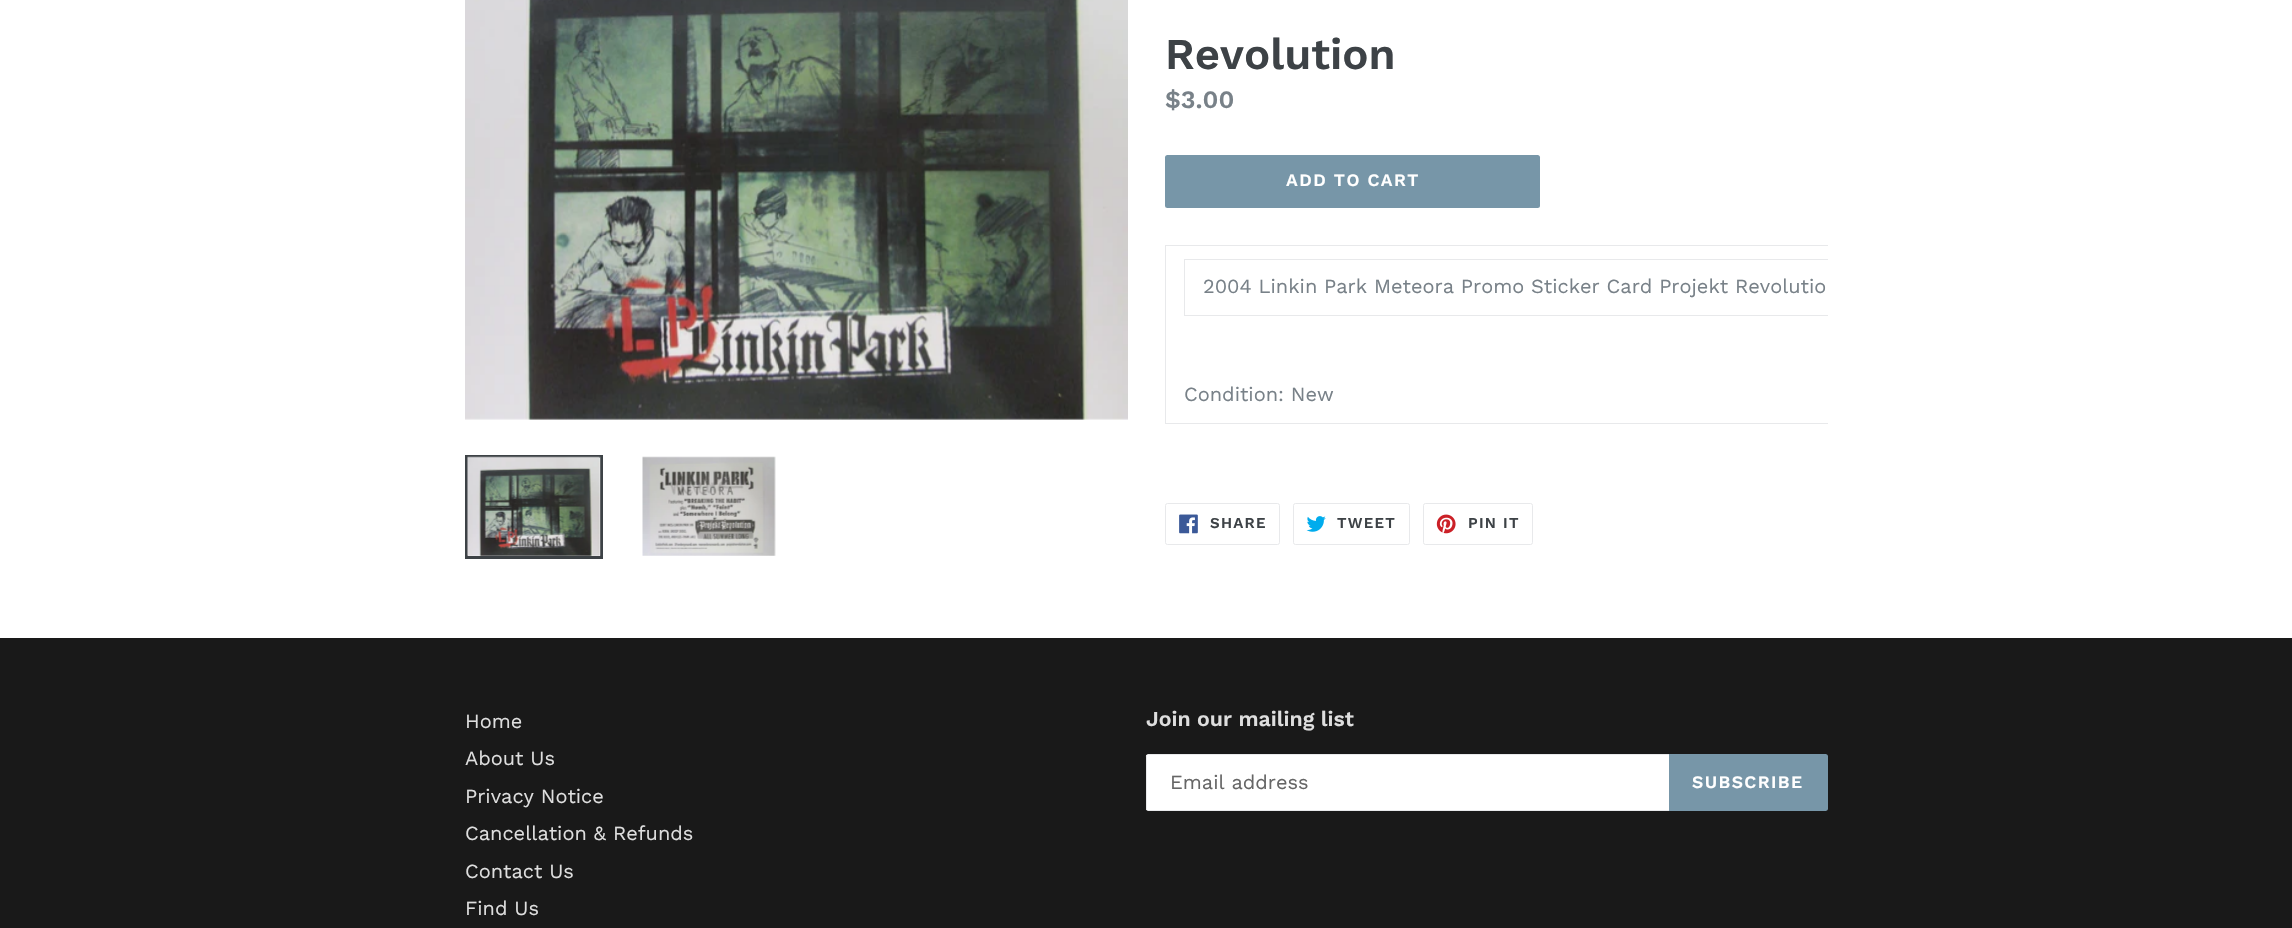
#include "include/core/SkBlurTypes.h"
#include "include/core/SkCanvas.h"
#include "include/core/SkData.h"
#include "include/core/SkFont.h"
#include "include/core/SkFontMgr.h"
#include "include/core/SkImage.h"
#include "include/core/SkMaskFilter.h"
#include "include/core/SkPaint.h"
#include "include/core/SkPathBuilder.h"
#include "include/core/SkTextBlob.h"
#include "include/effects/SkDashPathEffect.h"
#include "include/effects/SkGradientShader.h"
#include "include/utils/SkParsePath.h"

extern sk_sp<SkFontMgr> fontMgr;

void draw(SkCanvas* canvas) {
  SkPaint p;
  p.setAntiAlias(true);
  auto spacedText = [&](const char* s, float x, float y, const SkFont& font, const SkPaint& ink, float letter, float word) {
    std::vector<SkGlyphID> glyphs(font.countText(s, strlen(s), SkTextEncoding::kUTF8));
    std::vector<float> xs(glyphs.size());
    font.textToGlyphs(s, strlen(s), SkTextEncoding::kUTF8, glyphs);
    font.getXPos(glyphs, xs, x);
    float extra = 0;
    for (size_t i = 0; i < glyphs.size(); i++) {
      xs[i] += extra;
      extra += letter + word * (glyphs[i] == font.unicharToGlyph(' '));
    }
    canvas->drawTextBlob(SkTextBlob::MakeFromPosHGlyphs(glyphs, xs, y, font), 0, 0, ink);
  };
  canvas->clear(SK_ColorWHITE);
  canvas->drawImageRect(SkImages::DeferredFromEncodedData(SkData::MakeFromFileName("images/1.png")), SkRect::MakeLTRB(465, 0, 1128, 420), SkSamplingOptions());
  p.setStyle(SkPaint::kStroke_Style);
  p.setStrokeWidth(3);
  p.setColor(SkColorSetRGB(61, 66, 70));
  canvas->drawRect(SkRect::MakeLTRB(466.5f, 456.5f, 601.5f, 557.5f), p);
  canvas->drawImageRect(SkImages::DeferredFromEncodedData(SkData::MakeFromFileName("images/2.png")), SkRect::MakeLTRB(467, 456, 601, 556), SkSamplingOptions());
  canvas->drawImageRect(SkImages::DeferredFromEncodedData(SkData::MakeFromFileName("images/3.png")), SkRect::MakeLTRB(642, 456, 776, 556), SkSamplingOptions());
  p.setStyle(SkPaint::kFill_Style);
  p.setColor(SkColorSetRGB(119, 150, 168));
  canvas->drawRoundRect(SkRect::MakeLTRB(1165, 155, 1540, 208), 2.5f, 2.5f, p);
  p.setColor(SkColorSetRGB(232, 233, 235));
  canvas->drawRect(SkRect::MakeLTRB(1165, 245, 1828, 246), p);
  canvas->drawRect(SkRect::MakeLTRB(1165, 423, 1828, 424), p);
  canvas->drawRect(SkRect::MakeLTRB(1165, 245, 1166, 424), p);
  canvas->drawRect(SkRect::MakeLTRB(1184, 259, 1828, 260), p);
  canvas->drawRect(SkRect::MakeLTRB(1184, 315, 1828, 316), p);
  canvas->drawRect(SkRect::MakeLTRB(1184, 259, 1185, 316), p);
  p.setStyle(SkPaint::kStroke_Style);
  p.setStrokeWidth(1);
  canvas->drawRoundRect(SkRect::MakeLTRB(1165.5f, 503.5f, 1279.5f, 544.5f), 2, 2, p);
  canvas->drawImageRect(SkImages::DeferredFromEncodedData(SkData::MakeFromFileName("images/4.png")), SkRect::MakeLTRB(1179, 514, 1198, 534), SkSamplingOptions());
  canvas->drawRoundRect(SkRect::MakeLTRB(1293.5f, 503.5f, 1409.5f, 544.5f), 2, 2, p);
  canvas->drawImageRect(SkImages::DeferredFromEncodedData(SkData::MakeFromFileName("images/5.png")), SkRect::MakeLTRB(1306, 516, 1326, 532), SkSamplingOptions());
  canvas->drawRoundRect(SkRect::MakeLTRB(1423.5f, 503.5f, 1532.5f, 544.5f), 2, 2, p);
  canvas->drawImageRect(SkImages::DeferredFromEncodedData(SkData::MakeFromFileName("images/6.png")), SkRect::MakeLTRB(1436, 514, 1456, 534), SkSamplingOptions());
  p.setStyle(SkPaint::kFill_Style);
  p.setColor(SkColorSetRGB(25, 25, 25));
  canvas->drawRect(SkRect::MakeLTRB(0, 638, 2292, 928), p);
  p.setColor(SK_ColorWHITE);
  canvas->drawPath(SkPathBuilder().moveTo(1148.5f, 754).lineTo(1669, 754).lineTo(1669, 811).lineTo(1148.5f, 811).cubicTo(1147, 811, 1146, 810, 1146, 808.5f).lineTo(1146, 756.5f).cubicTo(1146, 755, 1147, 754, 1148.5f, 754).close().detach(), p);
  p.setColor(SkColorSetRGB(232, 233, 235));
  canvas->drawRect(SkRect::MakeLTRB(1148, 754, 1669, 755), p);
  canvas->drawRect(SkRect::MakeLTRB(1148, 810, 1669, 811), p);
  canvas->drawRect(SkRect::MakeLTRB(1146, 755, 1147, 810), p);
  p.setColor(SkColorSetRGB(119, 150, 168));
  canvas->drawPath(SkPathBuilder().moveTo(1669, 754).lineTo(1825.5f, 754).cubicTo(1827, 754, 1828, 755, 1828, 756.5f).lineTo(1828, 808.5f).cubicTo(1828, 810, 1827, 811, 1825.5f, 811).lineTo(1669, 811).close().detach(), p);
  SkFont font1(fontMgr->matchFamilyStyle("Work Sans", SkFontStyle(600, SkFontStyle::kNormal_Width, SkFontStyle::kUpright_Slant)), 43.75f);
  font1.setSubpixel(true);
  p.setColor(SkColorSetRGB(61, 66, 70));
  canvas->drawString("Revolution", 1165, 69, font1, p);
  SkFont font2(fontMgr->matchFamilyStyle("Work Sans", SkFontStyle(600, SkFontStyle::kNormal_Width, SkFontStyle::kUpright_Slant)), 25);
  font2.setSubpixel(true);
  p.setColor(SkColorSetRGB(120, 129, 136));
  canvas->drawString("$3.00", 1165, 108, font2, p);
  SkFont font3(fontMgr->matchFamilyStyle("Work Sans", SkFontStyle(600, SkFontStyle::kNormal_Width, SkFontStyle::kUpright_Slant)), 17.5f);
  font3.setSubpixel(true);
  p.setColor(SK_ColorWHITE);
  spacedText("ADD TO CART", 1286, 186, font3, p, 1.4f, 0);
  SkFont font4(fontMgr->matchFamilyStyle("Work Sans", SkFontStyle::Normal()), 20);
  font4.setSubpixel(true);
  p.setColor(SkColorSetRGB(120, 129, 136));
  canvas->drawString("2004 Linkin Park Meteora Promo Sticker Card Projekt Revolutio", 1203, 293, font4, p);
  canvas->drawString("Condition: New", 1184, 401, font4, p);
  SkFont font5(fontMgr->matchFamilyStyle("Work Sans", SkFontStyle(600, SkFontStyle::kNormal_Width, SkFontStyle::kUpright_Slant)), 15);
  font5.setSubpixel(true);
  p.setColor(SkColorSetRGB(61, 66, 70));
  spacedText("SHARE", 1210, 528, font5, p, 1.25f, 0);
  spacedText("TWEET", 1337, 528, font5, p, 1.25f, 0);
  spacedText("PIN IT", 1468, 528, font5, p, 1.25f, 0);
  p.setColor(SkColorSetRGB(222, 222, 222));
  canvas->drawString("Home", 465, 728, font4, p);
  canvas->drawString("About Us", 465, 765, font4, p);
  canvas->drawString("Privacy Notice", 465, 803, font4, p);
  canvas->drawString("Cancellation & Refunds", 465, 840, font4, p);
  canvas->drawString("Contact Us", 465, 878, font4, p);
  canvas->drawString("Find Us", 465, 915, font4, p);
  SkFont font6(fontMgr->matchFamilyStyle("Work Sans", SkFontStyle(600, SkFontStyle::kNormal_Width, SkFontStyle::kUpright_Slant)), 21.25f);
  font6.setSubpixel(true);
  canvas->drawString("Join our mailing list", 1146, 726, font6, p);
  p.setColor(SkColorSetRGB(102, 102, 102));
  canvas->drawString("Email address", 1170, 789, font4, p);
  p.setColor(SK_ColorWHITE);
  spacedText("SUBSCRIBE", 1692, 788, font3, p, 1.4f, 0);
}
